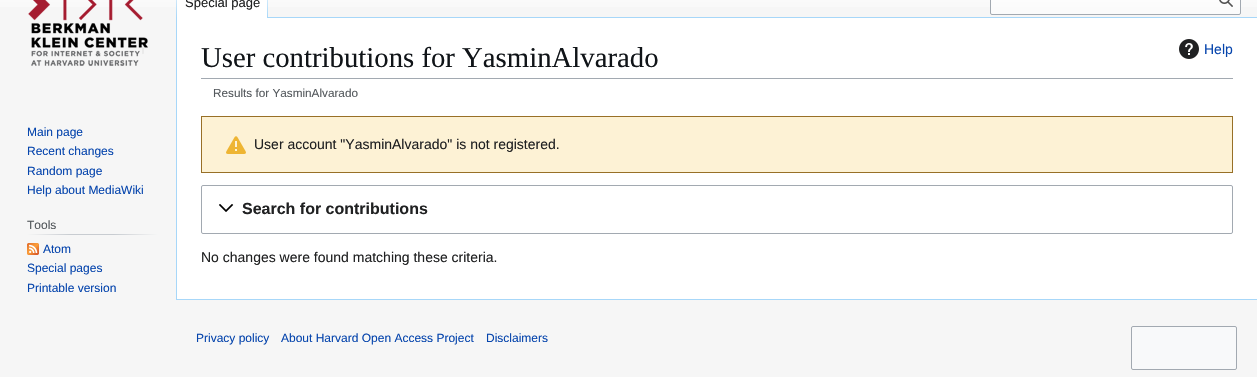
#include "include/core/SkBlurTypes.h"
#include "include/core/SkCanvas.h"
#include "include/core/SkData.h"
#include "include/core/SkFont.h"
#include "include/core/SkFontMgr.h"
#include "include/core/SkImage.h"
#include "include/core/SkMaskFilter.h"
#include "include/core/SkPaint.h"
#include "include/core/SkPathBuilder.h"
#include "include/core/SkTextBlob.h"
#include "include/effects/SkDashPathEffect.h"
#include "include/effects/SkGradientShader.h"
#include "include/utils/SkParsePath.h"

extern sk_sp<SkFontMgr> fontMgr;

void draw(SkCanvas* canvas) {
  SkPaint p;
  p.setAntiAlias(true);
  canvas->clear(SkColorSetRGB(246, 246, 246));
  {
    const SkColor colors[] = {SK_ColorWHITE, SkColorSetRGB(246, 246, 246)};
    const float stops[] = {0.5f, 1};
    const SkPoint ends[] = {{629, -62}, {629, 18}};
    p.setShader(SkGradientShader::MakeLinear(ends, colors, stops, 2, SkTileMode::kClamp));
    p.setAlpha(255);
  }
  canvas->drawRect(SkRect::MakeLTRB(0, 0, 1257, 7), p);
  p.setShader(nullptr);
  p.setColor(SkColorSetRGB(167, 215, 249));
  canvas->drawRect(SkRect::MakeLTRB(176, 299, 1257, 300), p);
  canvas->drawRect(SkRect::MakeLTRB(176, 17, 177, 300), p);
  {
    const SkColor colors[] = {SkColorSetARGB(0, 167, 215, 249), SkColorSetRGB(167, 215, 249)};
    const float stops[] = {0, 1};
    const SkPoint ends[] = {{177, -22}, {177, 18}};
    p.setShader(SkGradientShader::MakeLinear(ends, colors, stops, 2, SkTileMode::kClamp));
    p.setAlpha(255);
  }
  canvas->drawRect(SkRect::MakeLTRB(176, 0, 177, 18), p);
  p.setShader(nullptr);
  p.setColor(SK_ColorWHITE);
  canvas->drawRect(SkRect::MakeLTRB(177, 0, 267, 18), p);
  {
    const SkColor colors[] = {SK_ColorWHITE, SkColorSetRGB(167, 215, 249)};
    const float stops[] = {0, 1};
    const SkPoint ends[] = {{268, -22}, {268, 18}};
    p.setShader(SkGradientShader::MakeLinear(ends, colors, stops, 2, SkTileMode::kClamp));
    p.setAlpha(255);
  }
  canvas->drawRect(SkRect::MakeLTRB(267, 0, 268, 18), p);
  p.setShader(nullptr);
  p.setColor(SkColorSetARGB(128, 255, 255, 255));
  canvas->drawRoundRect(SkRect::MakeLTRB(990.5f, -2.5f, 1240.5f, 14.5f), 1.5f, 1.5f, p);
  p.setStyle(SkPaint::kStroke_Style);
  p.setStrokeWidth(1);
  p.setColor(SkColorSetRGB(162, 169, 177));
  canvas->drawRoundRect(SkRect::MakeLTRB(990.5f, -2.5f, 1240.5f, 14.5f), 1.5f, 1.5f, p);
  canvas->drawImageRect(SkImages::DeferredFromEncodedData(SkData::MakeFromFileName("images/1.png")), SkRect::MakeLTRB(1219, 0, 1233, 7), SkSamplingOptions());
  canvas->drawImageRect(SkImages::DeferredFromEncodedData(SkData::MakeFromFileName("images/2.png")), SkRect::MakeLTRB(28, 0, 148, 66), SkSamplingOptions());
  p.setStyle(SkPaint::kFill_Style);
  {
    const SkColor colors[] = {SkColorSetRGB(246, 246, 246), SkColorSetRGB(200, 204, 209), SkColorSetRGB(200, 204, 209), SkColorSetRGB(246, 246, 246)};
    const float stops[] = {0, 0.33f, 0.66f, 1};
    const SkPoint ends[] = {{27, 235}, {158, 235}};
    p.setShader(SkGradientShader::MakeLinear(ends, colors, stops, 4, SkTileMode::kClamp));
    p.setAlpha(255);
  }
  canvas->drawRect(SkRect::MakeLTRB(27, 234, 158, 235), p);
  canvas->drawImageRect(SkImages::DeferredFromEncodedData(SkData::MakeFromFileName("images/3.png")), SkRect::MakeLTRB(27, 243, 39, 255), SkSamplingOptions());
  p.setShader(nullptr);
  p.setColor(SK_ColorWHITE);
  canvas->drawRect(SkRect::MakeLTRB(177, 18, 1257, 299), p);
  p.setColor(SkColorSetRGB(167, 215, 249));
  canvas->drawRect(SkRect::MakeLTRB(268, 17, 1257, 18), p);
  p.setColor(SkColorSetRGB(162, 169, 177));
  canvas->drawRect(SkRect::MakeLTRB(201, 78, 1233, 79), p);
  canvas->drawImageRect(SkImages::DeferredFromEncodedData(SkData::MakeFromFileName("images/4.png")), SkRect::MakeLTRB(1179, 39, 1199, 59), SkSamplingOptions());
  p.setColor(SkColorSetRGB(253, 242, 213));
  canvas->drawRect(SkRect::MakeLTRB(201.5f, 116.5f, 1232.5f, 172.5f), p);
  p.setStyle(SkPaint::kStroke_Style);
  p.setColor(SkColorSetRGB(152, 112, 39));
  canvas->drawRect(SkRect::MakeLTRB(201.5f, 116.5f, 1232.5f, 172.5f), p);
  canvas->drawImageRect(SkImages::DeferredFromEncodedData(SkData::MakeFromFileName("images/5.png")), SkRect::MakeLTRB(226, 136, 246, 154), SkSamplingOptions());
  p.setColor(SkColorSetRGB(162, 169, 177));
  canvas->drawRoundRect(SkRect::MakeLTRB(201.5f, 185.5f, 1232.5f, 233.5f), 1.5f, 1.5f, p);
  canvas->drawImageRect(SkImages::DeferredFromEncodedData(SkData::MakeFromFileName("images/6.png")), SkRect::MakeLTRB(219, 204, 234, 212), SkSamplingOptions());
  p.setStyle(SkPaint::kFill_Style);
  p.setColor(SkColorSetRGB(248, 249, 250));
  canvas->drawRoundRect(SkRect::MakeLTRB(1131.5f, 326.5f, 1236.5f, 369.5f), 1.5f, 1.5f, p);
  p.setStyle(SkPaint::kStroke_Style);
  p.setColor(SkColorSetRGB(162, 169, 177));
  canvas->drawRoundRect(SkRect::MakeLTRB(1131.5f, 326.5f, 1236.5f, 369.5f), 1.5f, 1.5f, p);
  SkFont font1(fontMgr->matchFamilyStyle("Liberation Sans", SkFontStyle::Normal()), 13);
  font1.setSubpixel(true);
  p.setStyle(SkPaint::kFill_Style);
  p.setColor(SkColorSetRGB(32, 33, 34));
  canvas->drawString("Special page", 185, 7, font1, p);
  SkFont font2(fontMgr->matchFamilyStyle("Liberation Sans", SkFontStyle::Normal()), 12);
  font2.setSubpixel(true);
  p.setColor(SkColorSetRGB(6, 69, 173));
  canvas->drawString("Main page", 27, 136, font2, p);
  canvas->drawString("Recent changes", 27, 155, font2, p);
  canvas->drawString("Random page", 27, 175, font2, p);
  canvas->drawString("Help about MediaWiki", 27, 194, font2, p);
  p.setColor(SkColorSetRGB(84, 89, 93));
  canvas->drawString("Tools", 27, 229, font2, p);
  p.setColor(SkColorSetRGB(6, 69, 173));
  canvas->drawString("Atom", 43, 253, font2, p);
  canvas->drawString("Special pages", 27, 272, font2, p);
  canvas->drawString("Printable version", 27, 292, font2, p);
  SkFont font3(fontMgr->matchFamilyStyle("Liberation Serif", SkFontStyle::Normal()), 28.75f);
  font3.setSubpixel(true);
  p.setColor(SkColorSetRGB(16, 20, 24));
  canvas->drawString("User contributions for YasminAlvarado", 201, 67, font3, p);
  SkFont font4(fontMgr->matchFamilyStyle("Liberation Sans", SkFontStyle::Normal()), 14);
  font4.setSubpixel(true);
  p.setColor(SkColorSetRGB(6, 69, 173));
  canvas->drawString("Help", 1204, 54, font4, p);
  SkFont font5(fontMgr->matchFamilyStyle("Liberation Sans", SkFontStyle::Normal()), 11.75f);
  font5.setSubpixel(true);
  p.setColor(SkColorSetRGB(84, 89, 93));
  canvas->drawString("Results for YasminAlvarado", 213, 97, font5, p);
  p.setColor(SkColorSetRGB(32, 33, 34));
  canvas->drawString("User account \"YasminAlvarado\" is not registered.", 254, 149, font4, p);
  SkFont font6(fontMgr->matchFamilyStyle("Liberation Sans", SkFontStyle::Bold()), 16);
  font6.setSubpixel(true);
  canvas->drawString("Search for contributions", 242, 214, font6, p);
  canvas->drawString("No changes were found matching these criteria.", 201, 262, font4, p);
  p.setColor(SkColorSetRGB(6, 69, 173));
  canvas->drawString("Privacy policy", 196, 342, font2, p);
  canvas->drawString("About Harvard Open Access Project", 281, 342, font2, p);
  canvas->drawString("Disclaimers", 486, 342, font2, p);
}
